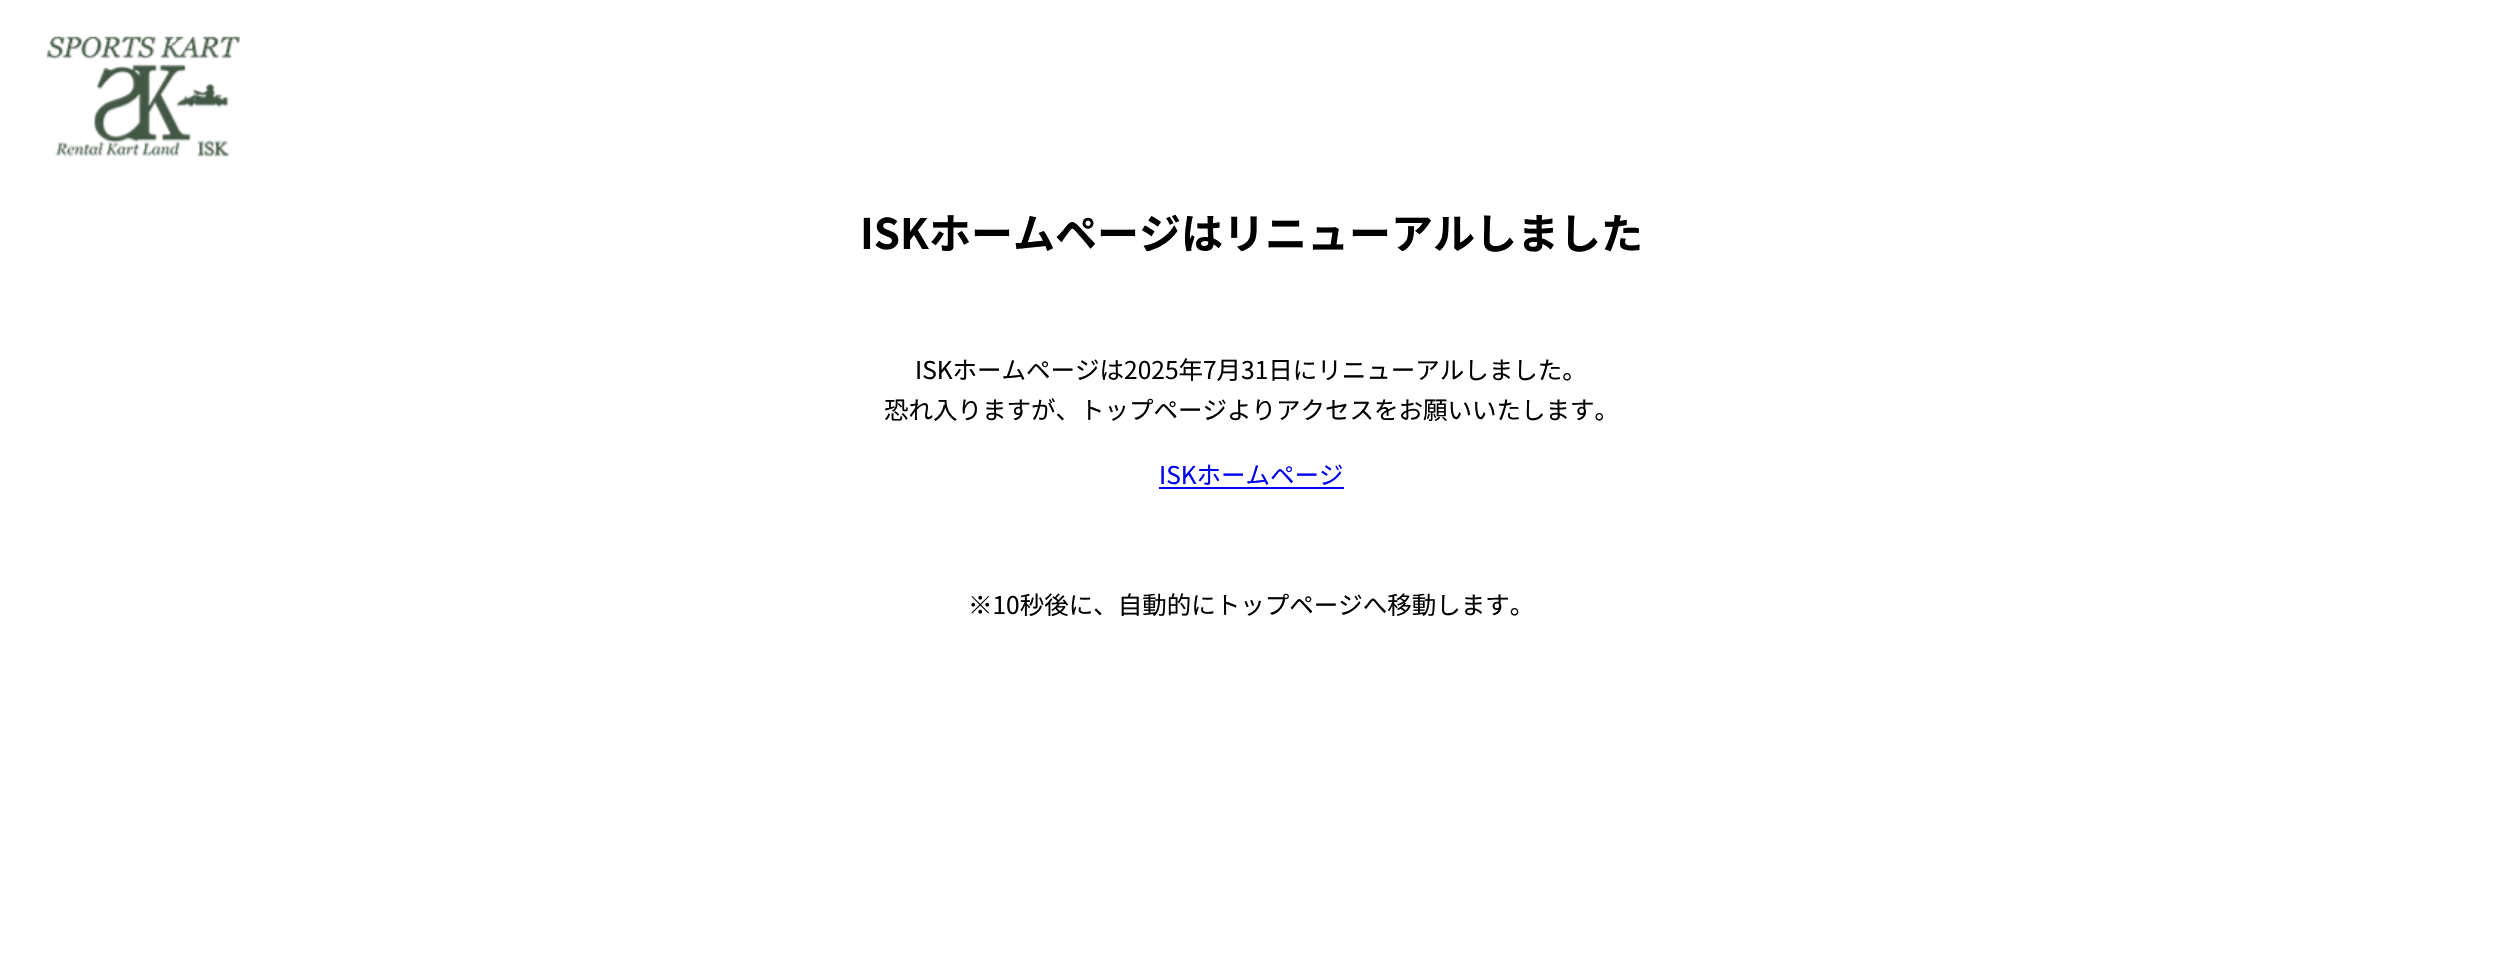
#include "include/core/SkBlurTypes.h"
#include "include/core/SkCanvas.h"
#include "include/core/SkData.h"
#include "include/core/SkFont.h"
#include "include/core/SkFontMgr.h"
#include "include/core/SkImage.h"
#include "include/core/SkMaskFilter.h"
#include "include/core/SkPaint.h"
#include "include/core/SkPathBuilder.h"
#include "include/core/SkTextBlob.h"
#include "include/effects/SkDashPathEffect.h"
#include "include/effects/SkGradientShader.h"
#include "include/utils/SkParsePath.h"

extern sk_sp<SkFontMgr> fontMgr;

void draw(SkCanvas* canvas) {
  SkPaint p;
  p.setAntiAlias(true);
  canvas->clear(SK_ColorWHITE);
  canvas->drawImageRect(SkImages::DeferredFromEncodedData(SkData::MakeFromFileName("images/1.png")), SkRect::MakeLTRB(46, 36, 240, 157), SkSamplingOptions());
  p.setColor(SkColorSetRGB(0, 0, 238));
  canvas->drawRect(SkRect::MakeLTRB(1159, 487, 1344, 489), p);
  SkFont font1(fontMgr->matchFamilyStyle("Noto Sans JP", SkFontStyle::Bold()), 42);
  font1.setSubpixel(true);
  p.setColor(SK_ColorBLACK);
  canvas->drawString("ISKホームページはリニューアルしました", 860, 249, font1, p);
  SkFont font2(fontMgr->matchFamilyStyle("Noto Sans JP", SkFontStyle::Normal()), 24.5f);
  font2.setSubpixel(true);
  canvas->drawString("ISKホームページは2025年7月31日にリニューアルしました。", 915, 379, font2, p);
  canvas->drawString("恐れ入りますが、トップページよりアクセスをお願いいたします。", 884, 419, font2, p);
  p.setColor(SkColorSetRGB(0, 0, 238));
  canvas->drawString("ISKホームページ", 1159, 484, font2, p);
  p.setColor(SK_ColorBLACK);
  canvas->drawString("※10秒後に、自動的にトップページへ移動します。", 968, 614, font2, p);
}
